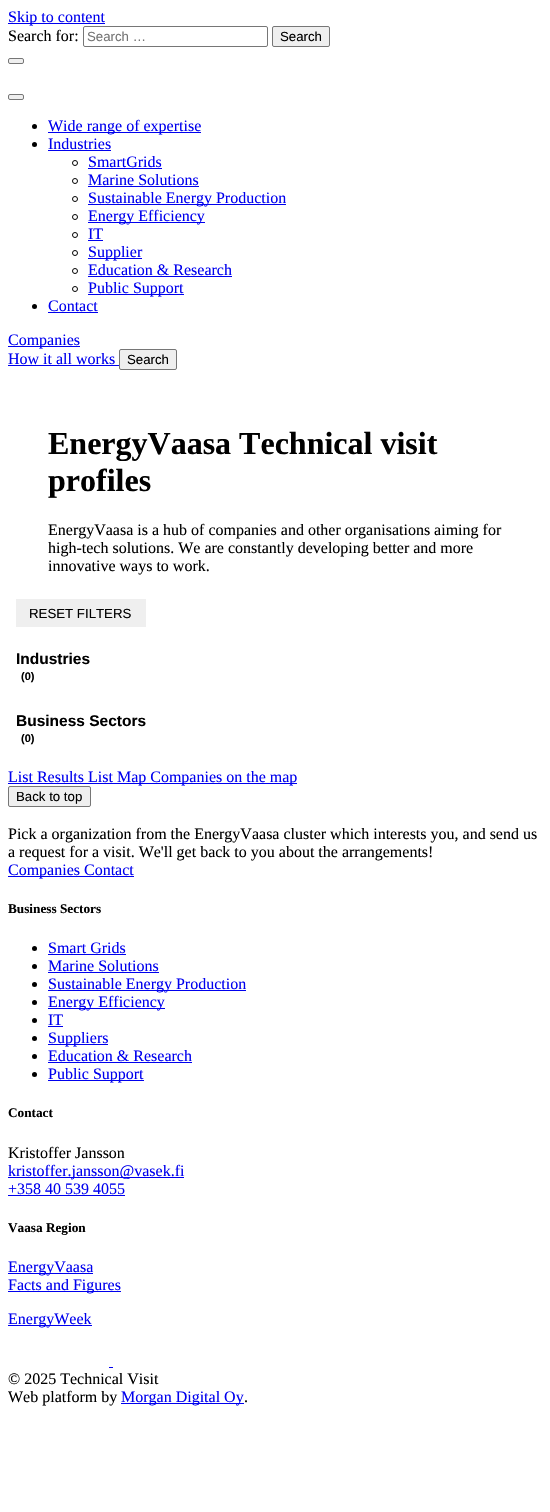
#include "include/core/SkBlurTypes.h"
#include "include/core/SkCanvas.h"
#include "include/core/SkData.h"
#include "include/core/SkFont.h"
#include "include/core/SkFontMgr.h"
#include "include/core/SkImage.h"
#include "include/core/SkMaskFilter.h"
#include "include/core/SkPaint.h"
#include "include/core/SkPathBuilder.h"
#include "include/core/SkTextBlob.h"
#include "include/effects/SkDashPathEffect.h"
#include "include/effects/SkGradientShader.h"
#include "include/utils/SkParsePath.h"

extern sk_sp<SkFontMgr> fontMgr;

void draw(SkCanvas* canvas) {
  SkPaint p;
  p.setAntiAlias(true);
  canvas->clear(SK_ColorWHITE);
  p.setColor(SkColorSetRGB(0, 0, 238));
  canvas->drawRect(SkRect::MakeLTRB(8, 23, 105, 24), p);
  p.setStyle(SkPaint::kStroke_Style);
  p.setStrokeWidth(1);
  p.setColor(SkColorSetRGB(118, 118, 118));
  canvas->drawRoundRect(SkRect::MakeLTRB(83.5f, 26.5f, 267.5f, 46.5f), 1.5f, 1.5f, p);
  p.setStyle(SkPaint::kFill_Style);
  p.setColor(SkColorSetRGB(239, 239, 239));
  canvas->drawRoundRect(SkRect::MakeLTRB(272.5f, 26.5f, 329.5f, 46.5f), 1.5f, 1.5f, p);
  p.setStyle(SkPaint::kStroke_Style);
  p.setColor(SkColorSetRGB(118, 118, 118));
  canvas->drawRoundRect(SkRect::MakeLTRB(272.5f, 26.5f, 329.5f, 46.5f), 1.5f, 1.5f, p);
  p.setStyle(SkPaint::kFill_Style);
  p.setColor(SkColorSetRGB(239, 239, 239));
  canvas->drawRoundRect(SkRect::MakeLTRB(8.5f, 58.5f, 23.5f, 63.5f), 1.5f, 1.5f, p);
  p.setStyle(SkPaint::kStroke_Style);
  p.setColor(SkColorSetRGB(118, 118, 118));
  canvas->drawRoundRect(SkRect::MakeLTRB(8.5f, 58.5f, 23.5f, 63.5f), 1.5f, 1.5f, p);
  p.setStyle(SkPaint::kFill_Style);
  p.setColor(SkColorSetRGB(239, 239, 239));
  canvas->drawRoundRect(SkRect::MakeLTRB(8.5f, 94.5f, 23.5f, 99.5f), 1.5f, 1.5f, p);
  p.setStyle(SkPaint::kStroke_Style);
  p.setColor(SkColorSetRGB(118, 118, 118));
  canvas->drawRoundRect(SkRect::MakeLTRB(8.5f, 94.5f, 23.5f, 99.5f), 1.5f, 1.5f, p);
  p.setStyle(SkPaint::kFill_Style);
  p.setColor(SK_ColorBLACK);
  canvas->drawCircle(34.5f, 126.5f, 2.5f, p);
  p.setColor(SkColorSetRGB(0, 0, 238));
  canvas->drawRect(SkRect::MakeLTRB(48, 132, 201, 133), p);
  p.setColor(SK_ColorBLACK);
  canvas->drawCircle(34.5f, 144.5f, 2.5f, p);
  p.setColor(SkColorSetRGB(0, 0, 238));
  canvas->drawRect(SkRect::MakeLTRB(48, 150, 111, 151), p);
  p.setStyle(SkPaint::kStroke_Style);
  p.setColor(SK_ColorBLACK);
  canvas->drawCircle(75, 163, 2.5f, p);
  p.setStyle(SkPaint::kFill_Style);
  p.setColor(SkColorSetRGB(0, 0, 238));
  canvas->drawRect(SkRect::MakeLTRB(88, 168, 162, 169), p);
  p.setStyle(SkPaint::kStroke_Style);
  p.setColor(SK_ColorBLACK);
  canvas->drawCircle(75, 181, 2.5f, p);
  p.setStyle(SkPaint::kFill_Style);
  p.setColor(SkColorSetRGB(0, 0, 238));
  canvas->drawRect(SkRect::MakeLTRB(88, 186, 199, 187), p);
  p.setStyle(SkPaint::kStroke_Style);
  p.setColor(SK_ColorBLACK);
  canvas->drawCircle(75, 199, 2.5f, p);
  p.setStyle(SkPaint::kFill_Style);
  p.setColor(SkColorSetRGB(0, 0, 238));
  canvas->drawRect(SkRect::MakeLTRB(88, 204, 286, 205), p);
  p.setStyle(SkPaint::kStroke_Style);
  p.setColor(SK_ColorBLACK);
  canvas->drawCircle(75, 217, 2.5f, p);
  p.setStyle(SkPaint::kFill_Style);
  p.setColor(SkColorSetRGB(0, 0, 238));
  canvas->drawRect(SkRect::MakeLTRB(88, 222, 205, 223), p);
  p.setStyle(SkPaint::kStroke_Style);
  p.setColor(SK_ColorBLACK);
  canvas->drawCircle(75, 235, 2.5f, p);
  p.setStyle(SkPaint::kFill_Style);
  p.setColor(SkColorSetRGB(0, 0, 238));
  canvas->drawRect(SkRect::MakeLTRB(88, 240, 103, 241), p);
  p.setStyle(SkPaint::kStroke_Style);
  p.setColor(SK_ColorBLACK);
  canvas->drawCircle(75, 253, 2.5f, p);
  p.setStyle(SkPaint::kFill_Style);
  p.setColor(SkColorSetRGB(0, 0, 238));
  canvas->drawRect(SkRect::MakeLTRB(88, 258, 142, 259), p);
  p.setStyle(SkPaint::kStroke_Style);
  p.setColor(SK_ColorBLACK);
  canvas->drawCircle(75, 271, 2.5f, p);
  p.setStyle(SkPaint::kFill_Style);
  p.setColor(SkColorSetRGB(0, 0, 238));
  canvas->drawRect(SkRect::MakeLTRB(88, 276, 232, 277), p);
  p.setStyle(SkPaint::kStroke_Style);
  p.setColor(SK_ColorBLACK);
  canvas->drawCircle(75, 289, 2.5f, p);
  p.setStyle(SkPaint::kFill_Style);
  p.setColor(SkColorSetRGB(0, 0, 238));
  canvas->drawRect(SkRect::MakeLTRB(88, 294, 184, 295), p);
  p.setColor(SK_ColorBLACK);
  canvas->drawCircle(34.5f, 306.5f, 2.5f, p);
  p.setColor(SkColorSetRGB(0, 0, 238));
  canvas->drawRect(SkRect::MakeLTRB(48, 312, 98, 313), p);
  canvas->drawRect(SkRect::MakeLTRB(8, 346, 80, 347), p);
  canvas->drawRect(SkRect::MakeLTRB(8, 365, 119, 366), p);
  p.setColor(SkColorSetRGB(239, 239, 239));
  canvas->drawRoundRect(SkRect::MakeLTRB(119.5f, 349.5f, 176.5f, 369.5f), 1.5f, 1.5f, p);
  p.setStyle(SkPaint::kStroke_Style);
  p.setColor(SkColorSetRGB(118, 118, 118));
  canvas->drawRoundRect(SkRect::MakeLTRB(119.5f, 349.5f, 176.5f, 369.5f), 1.5f, 1.5f, p);
  p.setStyle(SkPaint::kFill_Style);
  p.setColor(SkColorSetRGB(239, 239, 239));
  canvas->drawRect(SkRect::MakeLTRB(16, 599, 146, 627), p);
  p.setColor(SkColorSetRGB(0, 0, 238));
  canvas->drawRect(SkRect::MakeLTRB(8, 783, 297, 784), p);
  p.setColor(SkColorSetRGB(239, 239, 239));
  canvas->drawRoundRect(SkRect::MakeLTRB(8.5f, 786.5f, 90.5f, 806.5f), 1.5f, 1.5f, p);
  p.setStyle(SkPaint::kStroke_Style);
  p.setColor(SkColorSetRGB(118, 118, 118));
  canvas->drawRoundRect(SkRect::MakeLTRB(8.5f, 786.5f, 90.5f, 806.5f), 1.5f, 1.5f, p);
  p.setStyle(SkPaint::kFill_Style);
  p.setColor(SkColorSetRGB(0, 0, 238));
  canvas->drawRect(SkRect::MakeLTRB(8, 876, 134, 877), p);
  p.setColor(SK_ColorBLACK);
  canvas->drawCircle(34.5f, 948.5f, 2.5f, p);
  p.setColor(SkColorSetRGB(0, 0, 238));
  canvas->drawRect(SkRect::MakeLTRB(48, 954, 126, 955), p);
  p.setColor(SK_ColorBLACK);
  canvas->drawCircle(34.5f, 966.5f, 2.5f, p);
  p.setColor(SkColorSetRGB(0, 0, 238));
  canvas->drawRect(SkRect::MakeLTRB(48, 972, 159, 973), p);
  p.setColor(SK_ColorBLACK);
  canvas->drawCircle(34.5f, 984.5f, 2.5f, p);
  p.setColor(SkColorSetRGB(0, 0, 238));
  canvas->drawRect(SkRect::MakeLTRB(48, 990, 246, 991), p);
  p.setColor(SK_ColorBLACK);
  canvas->drawCircle(34.5f, 1002.5f, 2.5f, p);
  p.setColor(SkColorSetRGB(0, 0, 238));
  canvas->drawRect(SkRect::MakeLTRB(48, 1008, 165, 1009), p);
  p.setColor(SK_ColorBLACK);
  canvas->drawCircle(34.5f, 1020.5f, 2.5f, p);
  p.setColor(SkColorSetRGB(0, 0, 238));
  canvas->drawRect(SkRect::MakeLTRB(48, 1026, 63, 1027), p);
  p.setColor(SK_ColorBLACK);
  canvas->drawCircle(34.5f, 1038.5f, 2.5f, p);
  p.setColor(SkColorSetRGB(0, 0, 238));
  canvas->drawRect(SkRect::MakeLTRB(48, 1044, 108, 1045), p);
  p.setColor(SK_ColorBLACK);
  canvas->drawCircle(34.5f, 1056.5f, 2.5f, p);
  p.setColor(SkColorSetRGB(0, 0, 238));
  canvas->drawRect(SkRect::MakeLTRB(48, 1062, 192, 1063), p);
  p.setColor(SK_ColorBLACK);
  canvas->drawCircle(34.5f, 1074.5f, 2.5f, p);
  p.setColor(SkColorSetRGB(0, 0, 238));
  canvas->drawRect(SkRect::MakeLTRB(48, 1080, 144, 1081), p);
  canvas->drawRect(SkRect::MakeLTRB(8, 1177, 184, 1178), p);
  canvas->drawRect(SkRect::MakeLTRB(8, 1195, 125, 1196), p);
  canvas->drawRect(SkRect::MakeLTRB(8, 1273, 93, 1274), p);
  canvas->drawRect(SkRect::MakeLTRB(8, 1291, 121, 1292), p);
  canvas->drawRect(SkRect::MakeLTRB(8, 1325, 92, 1326), p);
  canvas->drawRect(SkRect::MakeLTRB(109, 1367, 113, 1368), p);
  canvas->drawRect(SkRect::MakeLTRB(121, 1403, 244, 1404), p);
  SkFont font1(fontMgr->matchFamilyStyle("Liberation Serif", SkFontStyle::Normal()), 16);
  font1.setSubpixel(true);
  canvas->drawString("Skip to content", 8, 22, font1, p);
  p.setColor(SK_ColorBLACK);
  canvas->drawString("Search for:", 8, 41, font1, p);
  SkFont font2(fontMgr->matchFamilyStyle("Liberation Sans", SkFontStyle::Normal()), 13.25f);
  font2.setSubpixel(true);
  p.setColor(SkColorSetRGB(117, 117, 117));
  canvas->drawString("Search …", 87, 41, font2, p);
  p.setColor(SK_ColorBLACK);
  canvas->drawString("Search", 280, 41, font2, p);
  p.setColor(SkColorSetRGB(0, 0, 238));
  canvas->drawString("Wide range of expertise", 48, 131, font1, p);
  canvas->drawString("Industries", 48, 149, font1, p);
  canvas->drawString("SmartGrids", 88, 167, font1, p);
  canvas->drawString("Marine Solutions", 88, 185, font1, p);
  canvas->drawString("Sustainable Energy Production", 88, 203, font1, p);
  canvas->drawString("Energy Efficiency", 88, 221, font1, p);
  canvas->drawString("IT", 88, 239, font1, p);
  canvas->drawString("Supplier", 88, 257, font1, p);
  canvas->drawString("Education & Research", 88, 275, font1, p);
  canvas->drawString("Public Support", 88, 293, font1, p);
  canvas->drawString("Contact", 48, 311, font1, p);
  canvas->drawString("Companies", 8, 345, font1, p);
  canvas->drawString("How it all works", 8, 364, font1, p);
  p.setColor(SK_ColorBLACK);
  canvas->drawString("Search", 127, 364, font2, p);
  SkFont font3(fontMgr->matchFamilyStyle("Liberation Serif", SkFontStyle::Bold()), 32);
  font3.setSubpixel(true);
  canvas->drawString("EnergyVaasa Technical visit", 48, 454, font3, p);
  canvas->drawString("profiles", 48, 491, font3, p);
  canvas->drawString("EnergyVaasa is a hub of companies and other organisations aiming for", 48, 535, font1, p);
  canvas->drawString("high-tech solutions. We are constantly developing better and more", 48, 553, font1, p);
  canvas->drawString("innovative ways to work.", 48, 571, font1, p);
  canvas->drawString("RESET FILTERS", 29, 618, font2, p);
  SkFont font4(fontMgr->matchFamilyStyle("Liberation Sans", SkFontStyle::Bold()), 15.5f);
  font4.setSubpixel(true);
  canvas->drawString("Industries", 16, 664, font4, p);
  SkFont font5(fontMgr->matchFamilyStyle("Liberation Sans", SkFontStyle::Bold()), 11);
  font5.setSubpixel(true);
  canvas->drawString("(0)", 21, 680, font5, p);
  canvas->drawString("Business Sectors", 16, 726, font4, p);
  canvas->drawString("(0)", 21, 742, font5, p);
  p.setColor(SkColorSetRGB(0, 0, 238));
  canvas->drawString("List Results List Map Companies on the map", 8, 782, font1, p);
  p.setColor(SK_ColorBLACK);
  canvas->drawString("Back to top", 16, 801, font2, p);
  canvas->drawString("Pick a organization from the EnergyVaasa cluster which interests you, and send us", 8, 839, font1, p);
  canvas->drawString("a request for a visit. We'll get back to you about the arrangements!", 8, 857, font1, p);
  p.setColor(SkColorSetRGB(0, 0, 238));
  canvas->drawString("Companies Contact", 8, 875, font1, p);
  SkFont font6(fontMgr->matchFamilyStyle("Liberation Serif", SkFontStyle::Bold()), 13.25f);
  font6.setSubpixel(true);
  p.setColor(SK_ColorBLACK);
  canvas->drawString("Business Sectors", 8, 913, font6, p);
  p.setColor(SkColorSetRGB(0, 0, 238));
  canvas->drawString("Smart Grids", 48, 953, font1, p);
  canvas->drawString("Marine Solutions", 48, 971, font1, p);
  canvas->drawString("Sustainable Energy Production", 48, 989, font1, p);
  canvas->drawString("Energy Efficiency", 48, 1007, font1, p);
  canvas->drawString("IT", 48, 1025, font1, p);
  canvas->drawString("Suppliers", 48, 1043, font1, p);
  canvas->drawString("Education & Research", 48, 1061, font1, p);
  canvas->drawString("Public Support", 48, 1079, font1, p);
  p.setColor(SK_ColorBLACK);
  canvas->drawString("Contact", 8, 1117, font6, p);
  canvas->drawString("Kristoffer Jansson", 8, 1158, font1, p);
  p.setColor(SkColorSetRGB(0, 0, 238));
  canvas->drawString("kristoffer.jansson@vasek.fi", 8, 1176, font1, p);
  canvas->drawString("+358 40 539 4055", 8, 1194, font1, p);
  p.setColor(SK_ColorBLACK);
  canvas->drawString("Vaasa Region", 8, 1232, font6, p);
  p.setColor(SkColorSetRGB(0, 0, 238));
  canvas->drawString("EnergyVaasa", 8, 1272, font1, p);
  canvas->drawString("Facts and Figures", 8, 1290, font1, p);
  canvas->drawString("EnergyWeek", 8, 1324, font1, p);
  p.setColor(SK_ColorBLACK);
  canvas->drawString("© 2025 Technical Visit", 8, 1384, font1, p);
  canvas->drawString("Web platform by", 8, 1402, font1, p);
  p.setColor(SkColorSetRGB(0, 0, 238));
  canvas->drawString("Morgan Digital Oy", 121, 1402, font1, p);
  p.setColor(SK_ColorBLACK);
  canvas->drawString(".", 244, 1402, font1, p);
}
